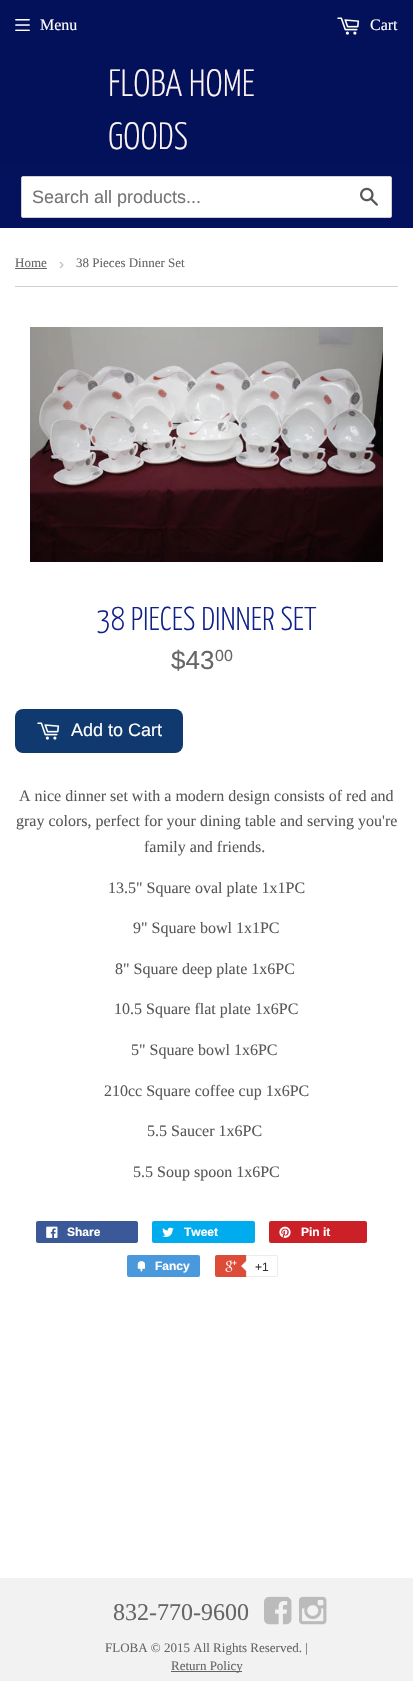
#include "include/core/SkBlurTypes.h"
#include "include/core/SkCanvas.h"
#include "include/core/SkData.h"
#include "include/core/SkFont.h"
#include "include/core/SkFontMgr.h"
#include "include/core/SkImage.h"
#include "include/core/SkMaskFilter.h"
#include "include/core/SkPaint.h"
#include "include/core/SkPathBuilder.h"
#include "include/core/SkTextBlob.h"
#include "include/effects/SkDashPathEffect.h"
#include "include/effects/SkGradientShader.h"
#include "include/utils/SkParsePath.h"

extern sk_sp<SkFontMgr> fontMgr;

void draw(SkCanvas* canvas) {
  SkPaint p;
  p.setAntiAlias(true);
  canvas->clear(SK_ColorWHITE);
  p.setColor(SkColorSetRGB(2, 17, 89));
  canvas->drawRect(SkRect::MakeLTRB(0, 0, 413, 166), p);
  canvas->drawImageRect(SkImages::DeferredFromEncodedData(SkData::MakeFromFileName("images/1.png")), SkRect::MakeLTRB(15, 19, 30, 31), SkSamplingOptions());
  canvas->drawImageRect(SkImages::DeferredFromEncodedData(SkData::MakeFromFileName("images/2.png")), SkRect::MakeLTRB(337, 17, 360, 35), SkSamplingOptions());
  p.setColor(SkColorSetRGB(4, 17, 93));
  canvas->drawRect(SkRect::MakeLTRB(0, 166, 413, 228), p);
  p.setColor(SK_ColorWHITE);
  canvas->drawRoundRect(SkRect::MakeLTRB(21.5f, 176.5f, 391.5f, 217.5f), 1.5f, 1.5f, p);
  p.setStyle(SkPaint::kStroke_Style);
  p.setStrokeWidth(1);
  p.setColor(SkColorSetRGB(209, 207, 207));
  canvas->drawRoundRect(SkRect::MakeLTRB(21.5f, 176.5f, 391.5f, 217.5f), 1.5f, 1.5f, p);
  canvas->drawImageRect(SkImages::DeferredFromEncodedData(SkData::MakeFromFileName("images/3.png")), SkRect::MakeLTRB(360, 187, 378, 206), SkSamplingOptions());
  p.setStyle(SkPaint::kFill_Style);
  canvas->drawRect(SkRect::MakeLTRB(15, 286, 398, 287), p);
  p.setColor(SkColorSetRGB(102, 102, 102));
  canvas->drawRect(SkRect::MakeLTRB(15, 268, 47, 269), p);
  canvas->drawImageRect(SkImages::DeferredFromEncodedData(SkData::MakeFromFileName("images/4.png")), SkRect::MakeLTRB(30, 327, 383, 562), SkSamplingOptions());
  p.setColor(SkColorSetRGB(15, 57, 111));
  canvas->drawRoundRect(SkRect::MakeLTRB(15, 709, 183, 753), 8, 8, p);
  canvas->drawImageRect(SkImages::DeferredFromEncodedData(SkData::MakeFromFileName("images/5.png")), SkRect::MakeLTRB(37, 722, 60, 740), SkSamplingOptions());
  p.setColor(SkColorSetRGB(59, 89, 152));
  canvas->drawRoundRect(SkRect::MakeLTRB(36, 1221, 138, 1243), 2, 2, p);
  canvas->drawImageRect(SkImages::DeferredFromEncodedData(SkData::MakeFromFileName("images/6.png")), SkRect::MakeLTRB(46, 1226, 58, 1238), SkSamplingOptions());
  p.setColor(SkColorSetRGB(0, 172, 237));
  canvas->drawRoundRect(SkRect::MakeLTRB(152, 1221, 255, 1243), 2, 2, p);
  canvas->drawImageRect(SkImages::DeferredFromEncodedData(SkData::MakeFromFileName("images/7.png")), SkRect::MakeLTRB(162, 1227, 174, 1237), SkSamplingOptions());
  p.setColor(SkColorSetRGB(203, 32, 39));
  canvas->drawRoundRect(SkRect::MakeLTRB(269, 1221, 367, 1243), 2, 2, p);
  canvas->drawImageRect(SkImages::DeferredFromEncodedData(SkData::MakeFromFileName("images/8.png")), SkRect::MakeLTRB(279, 1226, 291, 1238), SkSamplingOptions());
  p.setColor(SkColorSetRGB(73, 153, 220));
  canvas->drawRoundRect(SkRect::MakeLTRB(127, 1255, 200, 1277), 2, 2, p);
  canvas->drawImageRect(SkImages::DeferredFromEncodedData(SkData::MakeFromFileName("images/9.png")), SkRect::MakeLTRB(137, 1261, 146, 1272), SkSamplingOptions());
  p.setColor(SkColorSetRGB(221, 75, 57));
  canvas->drawRoundRect(SkRect::MakeLTRB(215, 1255, 276, 1277), 2, 2, p);
  canvas->drawImageRect(SkImages::DeferredFromEncodedData(SkData::MakeFromFileName("images/10.png")), SkRect::MakeLTRB(225, 1260, 237, 1272), SkSamplingOptions());
  p.setColor(SK_ColorWHITE);
  canvas->drawPath(SkPathBuilder().moveTo(246.5f, 1255.5f).lineTo(276, 1255.5f).cubicTo(277, 1255.5f, 277.5f, 1256, 277.5f, 1257).lineTo(277.5f, 1275).cubicTo(277.5f, 1276, 277, 1276.5f, 276, 1276.5f).lineTo(246.5f, 1276.5f).close().detach(), p);
  p.setStyle(SkPaint::kStroke_Style);
  p.setColor(SkColorSetRGB(236, 236, 236));
  canvas->drawPath(SkPathBuilder().moveTo(246.5f, 1255.5f).lineTo(276, 1255.5f).cubicTo(277, 1255.5f, 277.5f, 1256, 277.5f, 1257).lineTo(277.5f, 1275).cubicTo(277.5f, 1276, 277, 1276.5f, 276, 1276.5f).lineTo(246.5f, 1276.5f).close().detach(), p);
  p.setStyle(SkPaint::kFill_Style);
  canvas->drawPath(SkPathBuilder().moveTo(247, 1260).lineTo(247, 1272).lineTo(241, 1266).close().detach(), p);
  p.setColor(SK_ColorWHITE);
  canvas->drawPath(SkPathBuilder().moveTo(248, 1260).lineTo(248, 1272).lineTo(242, 1266).close().detach(), p);
  p.setColor(SkColorSetRGB(242, 242, 242));
  canvas->drawRect(SkRect::MakeLTRB(0, 1578, 413, 1681), p);
  canvas->drawImageRect(SkImages::DeferredFromEncodedData(SkData::MakeFromFileName("images/11.png")), SkRect::MakeLTRB(264, 1596, 292, 1625), SkSamplingOptions());
  canvas->drawImageRect(SkImages::DeferredFromEncodedData(SkData::MakeFromFileName("images/12.png")), SkRect::MakeLTRB(299, 1596, 327, 1625), SkSamplingOptions());
  p.setColor(SkColorSetRGB(99, 99, 99));
  canvas->drawRect(SkRect::MakeLTRB(171, 1671, 242, 1672), p);
  SkFont font1(fontMgr->matchFamilyStyle("Liberation Serif", SkFontStyle::Normal()), 16);
  font1.setSubpixel(true);
  p.setColor(SK_ColorWHITE);
  canvas->drawString("Menu", 40, 30, font1, p);
  canvas->drawString("Cart", 370, 30, font1, p);
  SkFont font2(fontMgr->matchFamilyStyle("Yanone Kaffeesatz", SkFontStyle(300, SkFontStyle::kNormal_Width, SkFontStyle::kUpright_Slant)), 38);
  font2.setSubpixel(true);
  p.setColor(SkColorSetRGB(255, 244, 244));
  canvas->drawString("FLOBA HOME", 108, 96, font2, p);
  canvas->drawString("GOODS", 108, 149, font2, p);
  SkFont font3(fontMgr->matchFamilyStyle("Liberation Sans", SkFontStyle::Normal()), 18);
  font3.setSubpixel(true);
  p.setColor(SkColorSetRGB(117, 117, 117));
  canvas->drawString("Search all products...", 32, 203, font3, p);
  SkFont font4(fontMgr->matchFamilyStyle("Liberation Serif", SkFontStyle::Normal()), 13);
  font4.setSubpixel(true);
  p.setColor(SkColorSetRGB(102, 102, 102));
  canvas->drawString("Home", 15, 267, font4, p);
  SkFont font5(fontMgr->matchFamilyStyle("Liberation Sans", SkFontStyle::Normal()), 15);
  font5.setSubpixel(true);
  p.setColor(SkColorSetRGB(187, 187, 187));
  canvas->drawString("›", 59, 269, font5, p);
  p.setColor(SkColorSetRGB(102, 102, 102));
  canvas->drawString("38 Pieces Dinner Set", 76, 267, font4, p);
  SkFont font6(fontMgr->matchFamilyStyle("Yanone Kaffeesatz", SkFontStyle(300, SkFontStyle::kNormal_Width, SkFontStyle::kUpright_Slant)), 33);
  font6.setSubpixel(true);
  p.setColor(SkColorSetRGB(15, 33, 136));
  canvas->drawString("38 PIECES DINNER SET", 96, 630, font6, p);
  SkFont font7(fontMgr->matchFamilyStyle("Liberation Sans", SkFontStyle::Normal()), 26);
  font7.setSubpixel(true);
  p.setColor(SkColorSetRGB(102, 102, 102));
  canvas->drawString("$43", 171, 669, font7, p);
  SkFont font8(fontMgr->matchFamilyStyle("Liberation Sans", SkFontStyle::Normal()), 16);
  font8.setSubpixel(true);
  canvas->drawString("00", 215, 661, font8, p);
  p.setColor(SK_ColorWHITE);
  canvas->drawString("Add to Cart", 71, 736, font3, p);
  p.setColor(SkColorSetRGB(88, 88, 88));
  canvas->drawString("A nice dinner set with a modern design consists of red and", 19, 801, font1, p);
  canvas->drawString("gray colors, perfect for your dining table and serving you're", 16, 826, font1, p);
  canvas->drawString("family and friends.", 144, 852, font1, p);
  canvas->drawString("13.5\" Square oval plate 1x1PC", 108, 893, font1, p);
  canvas->drawString("9\" Square bowl 1x1PC", 133, 933, font1, p);
  canvas->drawString("8\" Square deep plate 1x6PC", 115, 974, font1, p);
  canvas->drawString("10.5 Square flat plate 1x6PC", 114, 1014, font1, p);
  canvas->drawString("5\" Square bowl 1x6PC", 131, 1055, font1, p);
  canvas->drawString("210cc Square coffee cup 1x6PC", 104, 1096, font1, p);
  canvas->drawString("5.5 Saucer 1x6PC", 147, 1136, font1, p);
  canvas->drawString("5.5 Soup spoon 1x6PC", 133, 1177, font1, p);
  SkFont font9(fontMgr->matchFamilyStyle("Liberation Sans", SkFontStyle::Bold()), 12);
  font9.setSubpixel(true);
  p.setColor(SK_ColorWHITE);
  canvas->drawString("Share", 67, 1236, font9, p);
  canvas->drawString("Tweet", 184, 1236, font9, p);
  canvas->drawString("Pin it", 301, 1236, font9, p);
  canvas->drawString("Fancy", 155, 1270, font9, p);
  SkFont font10(fontMgr->matchFamilyStyle("Liberation Sans", SkFontStyle::Normal()), 12);
  font10.setSubpixel(true);
  p.setColor(SkColorSetRGB(51, 51, 51));
  canvas->drawString("+1", 255, 1271, font10, p);
  SkFont font11(fontMgr->matchFamilyStyle("Liberation Serif", SkFontStyle::Normal()), 24);
  font11.setSubpixel(true);
  p.setColor(SkColorSetRGB(102, 102, 102));
  canvas->drawString("832-770-9600", 113, 1620, font11, p);
  canvas->drawString("FLOBA © 2015 All Rights Reserved. |", 105, 1652, font4, p);
  canvas->drawString("Return Policy", 171, 1670, font4, p);
}
